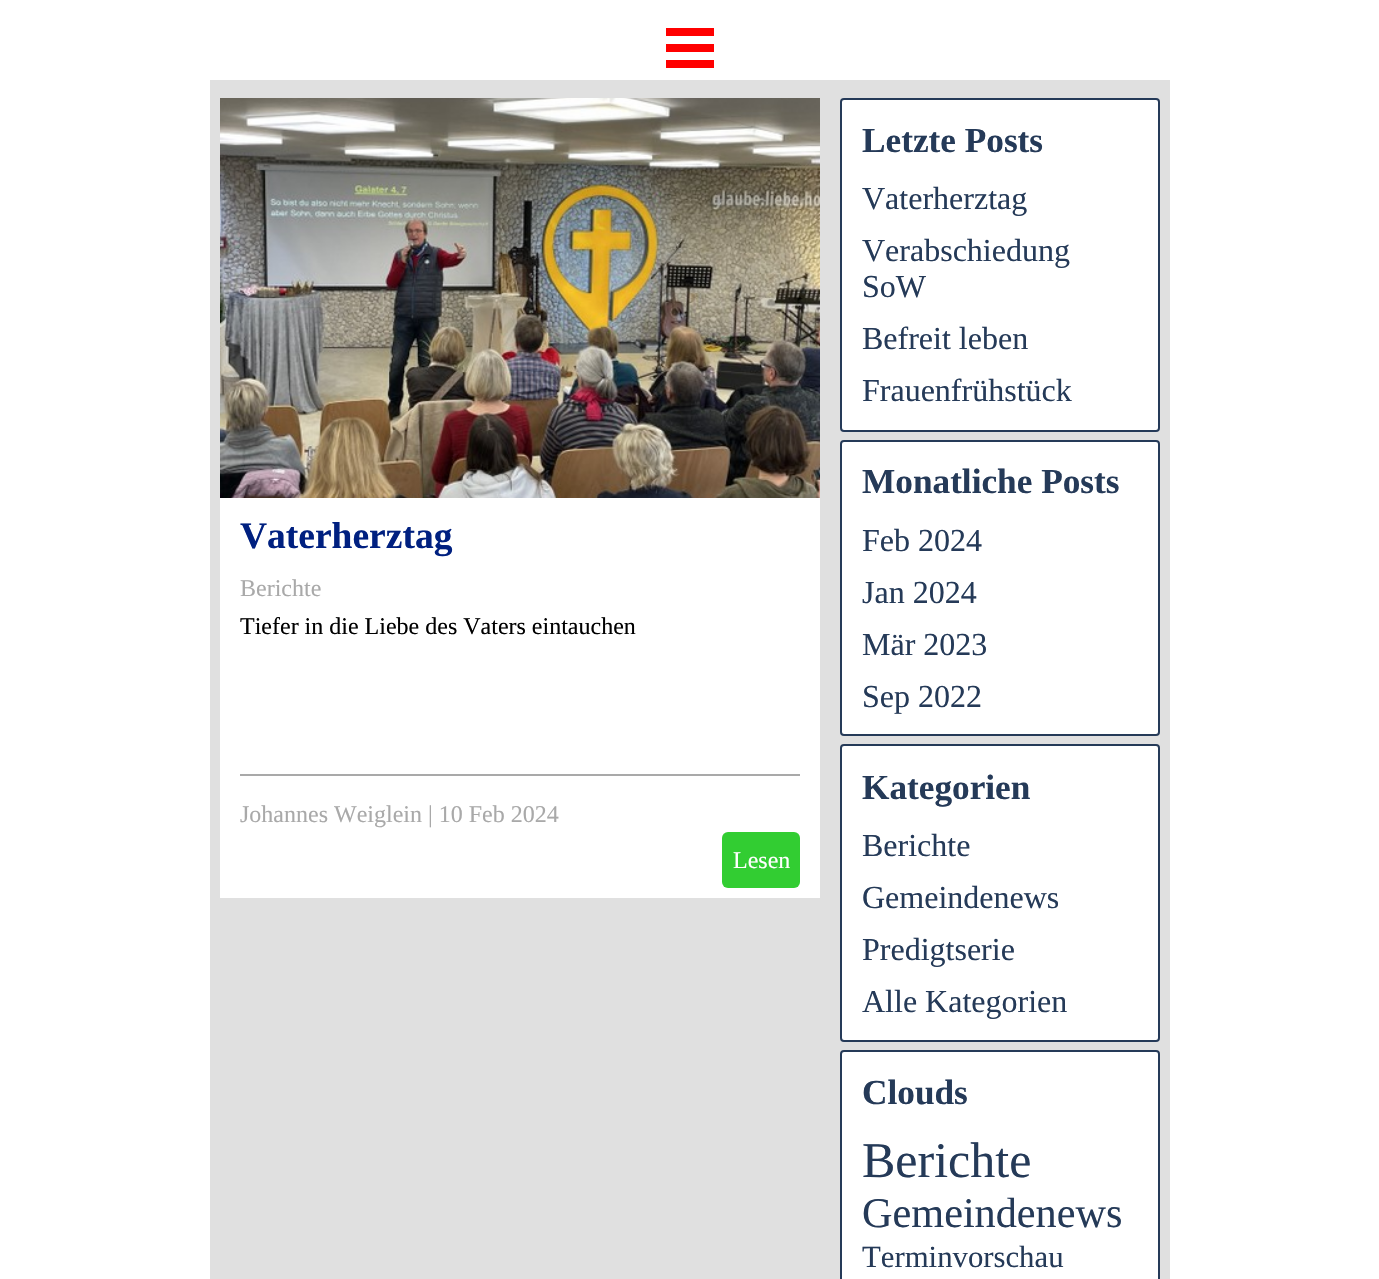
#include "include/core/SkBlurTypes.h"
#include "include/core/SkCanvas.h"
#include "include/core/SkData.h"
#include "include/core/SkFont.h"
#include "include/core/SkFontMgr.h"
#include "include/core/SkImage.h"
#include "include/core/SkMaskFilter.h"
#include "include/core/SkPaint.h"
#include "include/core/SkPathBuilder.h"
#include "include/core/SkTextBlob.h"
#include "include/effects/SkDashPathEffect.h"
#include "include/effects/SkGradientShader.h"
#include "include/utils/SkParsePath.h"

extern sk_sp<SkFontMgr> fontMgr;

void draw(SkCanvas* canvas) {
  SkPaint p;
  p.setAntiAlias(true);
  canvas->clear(SK_ColorWHITE);
  p.setColor(SkColorSetRGB(255, 0, 0));
  canvas->drawRect(SkRect::MakeLTRB(666, 28, 714, 36), p);
  canvas->drawRect(SkRect::MakeLTRB(666, 44, 714, 52), p);
  canvas->drawRect(SkRect::MakeLTRB(666, 60, 714, 68), p);
  p.setColor(SkColorSetRGB(224, 224, 224));
  canvas->drawRect(SkRect::MakeLTRB(210, 80, 1170, 1279), p);
  p.setColor(SK_ColorWHITE);
  canvas->drawRect(SkRect::MakeLTRB(220, 498, 820, 898), p);
  canvas->drawImageRect(SkImages::DeferredFromEncodedData(SkData::MakeFromFileName("images/1.png")), SkRect::MakeLTRB(220, 98, 820, 498), SkSamplingOptions());
  p.setColor(SkColorSetRGB(169, 169, 169));
  canvas->drawRect(SkRect::MakeLTRB(240, 774, 800, 776), p);
  p.setColor(SkColorSetRGB(50, 205, 50));
  canvas->drawRoundRect(SkRect::MakeLTRB(722, 832, 800, 888), 6, 6, p);
  p.setColor(SK_ColorWHITE);
  canvas->drawRoundRect(SkRect::MakeLTRB(841, 99, 1159, 431), 3, 3, p);
  p.setStyle(SkPaint::kStroke_Style);
  p.setStrokeWidth(2);
  p.setColor(SkColorSetRGB(37, 58, 88));
  canvas->drawRoundRect(SkRect::MakeLTRB(841, 99, 1159, 431), 3, 3, p);
  p.setStyle(SkPaint::kFill_Style);
  p.setColor(SK_ColorWHITE);
  canvas->drawRoundRect(SkRect::MakeLTRB(841, 441, 1159, 735), 3, 3, p);
  p.setStyle(SkPaint::kStroke_Style);
  p.setColor(SkColorSetRGB(37, 58, 88));
  canvas->drawRoundRect(SkRect::MakeLTRB(841, 441, 1159, 735), 3, 3, p);
  p.setStyle(SkPaint::kFill_Style);
  p.setColor(SK_ColorWHITE);
  canvas->drawRoundRect(SkRect::MakeLTRB(841, 745, 1159, 1041), 3, 3, p);
  p.setStyle(SkPaint::kStroke_Style);
  p.setColor(SkColorSetRGB(37, 58, 88));
  canvas->drawRoundRect(SkRect::MakeLTRB(841, 745, 1159, 1041), 3, 3, p);
  p.setStyle(SkPaint::kFill_Style);
  p.setColor(SK_ColorWHITE);
  canvas->drawRoundRect(SkRect::MakeLTRB(841, 1051, 1159, 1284), 3, 3, p);
  p.setStyle(SkPaint::kStroke_Style);
  p.setColor(SkColorSetRGB(37, 58, 88));
  canvas->drawRoundRect(SkRect::MakeLTRB(841, 1051, 1159, 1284), 3, 3, p);
  SkFont font1(fontMgr->matchFamilyStyle("Liberation Serif", SkFontStyle::Bold()), 37.5f);
  font1.setSubpixel(true);
  p.setStyle(SkPaint::kFill_Style);
  p.setColor(SkColorSetRGB(0, 32, 128));
  canvas->drawString("Vaterherztag", 240, 548, font1, p);
  SkFont font2(fontMgr->matchFamilyStyle("Liberation Serif", SkFontStyle::Normal()), 24);
  font2.setSubpixel(true);
  p.setColor(SkColorSetRGB(169, 169, 169));
  canvas->drawString("Berichte", 240, 596, font2, p);
  p.setColor(SK_ColorBLACK);
  canvas->drawString("Tiefer in die Liebe des Vaters eintauchen", 240, 634, font2, p);
  p.setColor(SkColorSetRGB(169, 169, 169));
  canvas->drawString("Johannes Weiglein | 10 Feb 2024", 240, 822, font2, p);
  p.setColor(SK_ColorWHITE);
  canvas->drawString("Lesen", 733, 868, font2, p);
  SkFont font3(fontMgr->matchFamilyStyle("Liberation Serif", SkFontStyle::Bold()), 35.25f);
  font3.setSubpixel(true);
  p.setColor(SkColorSetRGB(37, 58, 88));
  canvas->drawString("Letzte Posts", 862, 152, font3, p);
  SkFont font4(fontMgr->matchFamilyStyle("Liberation Serif", SkFontStyle::Normal()), 32);
  font4.setSubpixel(true);
  canvas->drawString("Vaterherztag", 862, 209, font4, p);
  canvas->drawString("Verabschiedung", 862, 261, font4, p);
  canvas->drawString("SoW", 862, 297, font4, p);
  canvas->drawString("Befreit leben", 862, 349, font4, p);
  canvas->drawString("Frauenfrühstück", 862, 401, font4, p);
  canvas->drawString("Monatliche Posts", 862, 493, font3, p);
  canvas->drawString("Feb 2024", 862, 551, font4, p);
  canvas->drawString("Jan 2024", 862, 603, font4, p);
  canvas->drawString("Mär 2023", 862, 655, font4, p);
  canvas->drawString("Sep 2022", 862, 707, font4, p);
  canvas->drawString("Kategorien", 862, 799, font3, p);
  canvas->drawString("Berichte", 862, 856, font4, p);
  canvas->drawString("Gemeindenews", 862, 908, font4, p);
  canvas->drawString("Predigtserie", 862, 960, font4, p);
  canvas->drawString("Alle Kategorien", 862, 1012, font4, p);
  canvas->drawString("Clouds", 862, 1104, font3, p);
  SkFont font5(fontMgr->matchFamilyStyle("Liberation Serif", SkFontStyle::Normal()), 50);
  font5.setSubpixel(true);
  canvas->drawString("Berichte", 862, 1177, font5, p);
  SkFont font6(fontMgr->matchFamilyStyle("Liberation Serif", SkFontStyle::Normal()), 42.25f);
  font6.setSubpixel(true);
  canvas->drawString("Gemeindenews", 862, 1227, font6, p);
  SkFont font7(fontMgr->matchFamilyStyle("Liberation Serif", SkFontStyle::Normal()), 30.75f);
  font7.setSubpixel(true);
  canvas->drawString("Terminvorschau", 862, 1267, font7, p);
}
